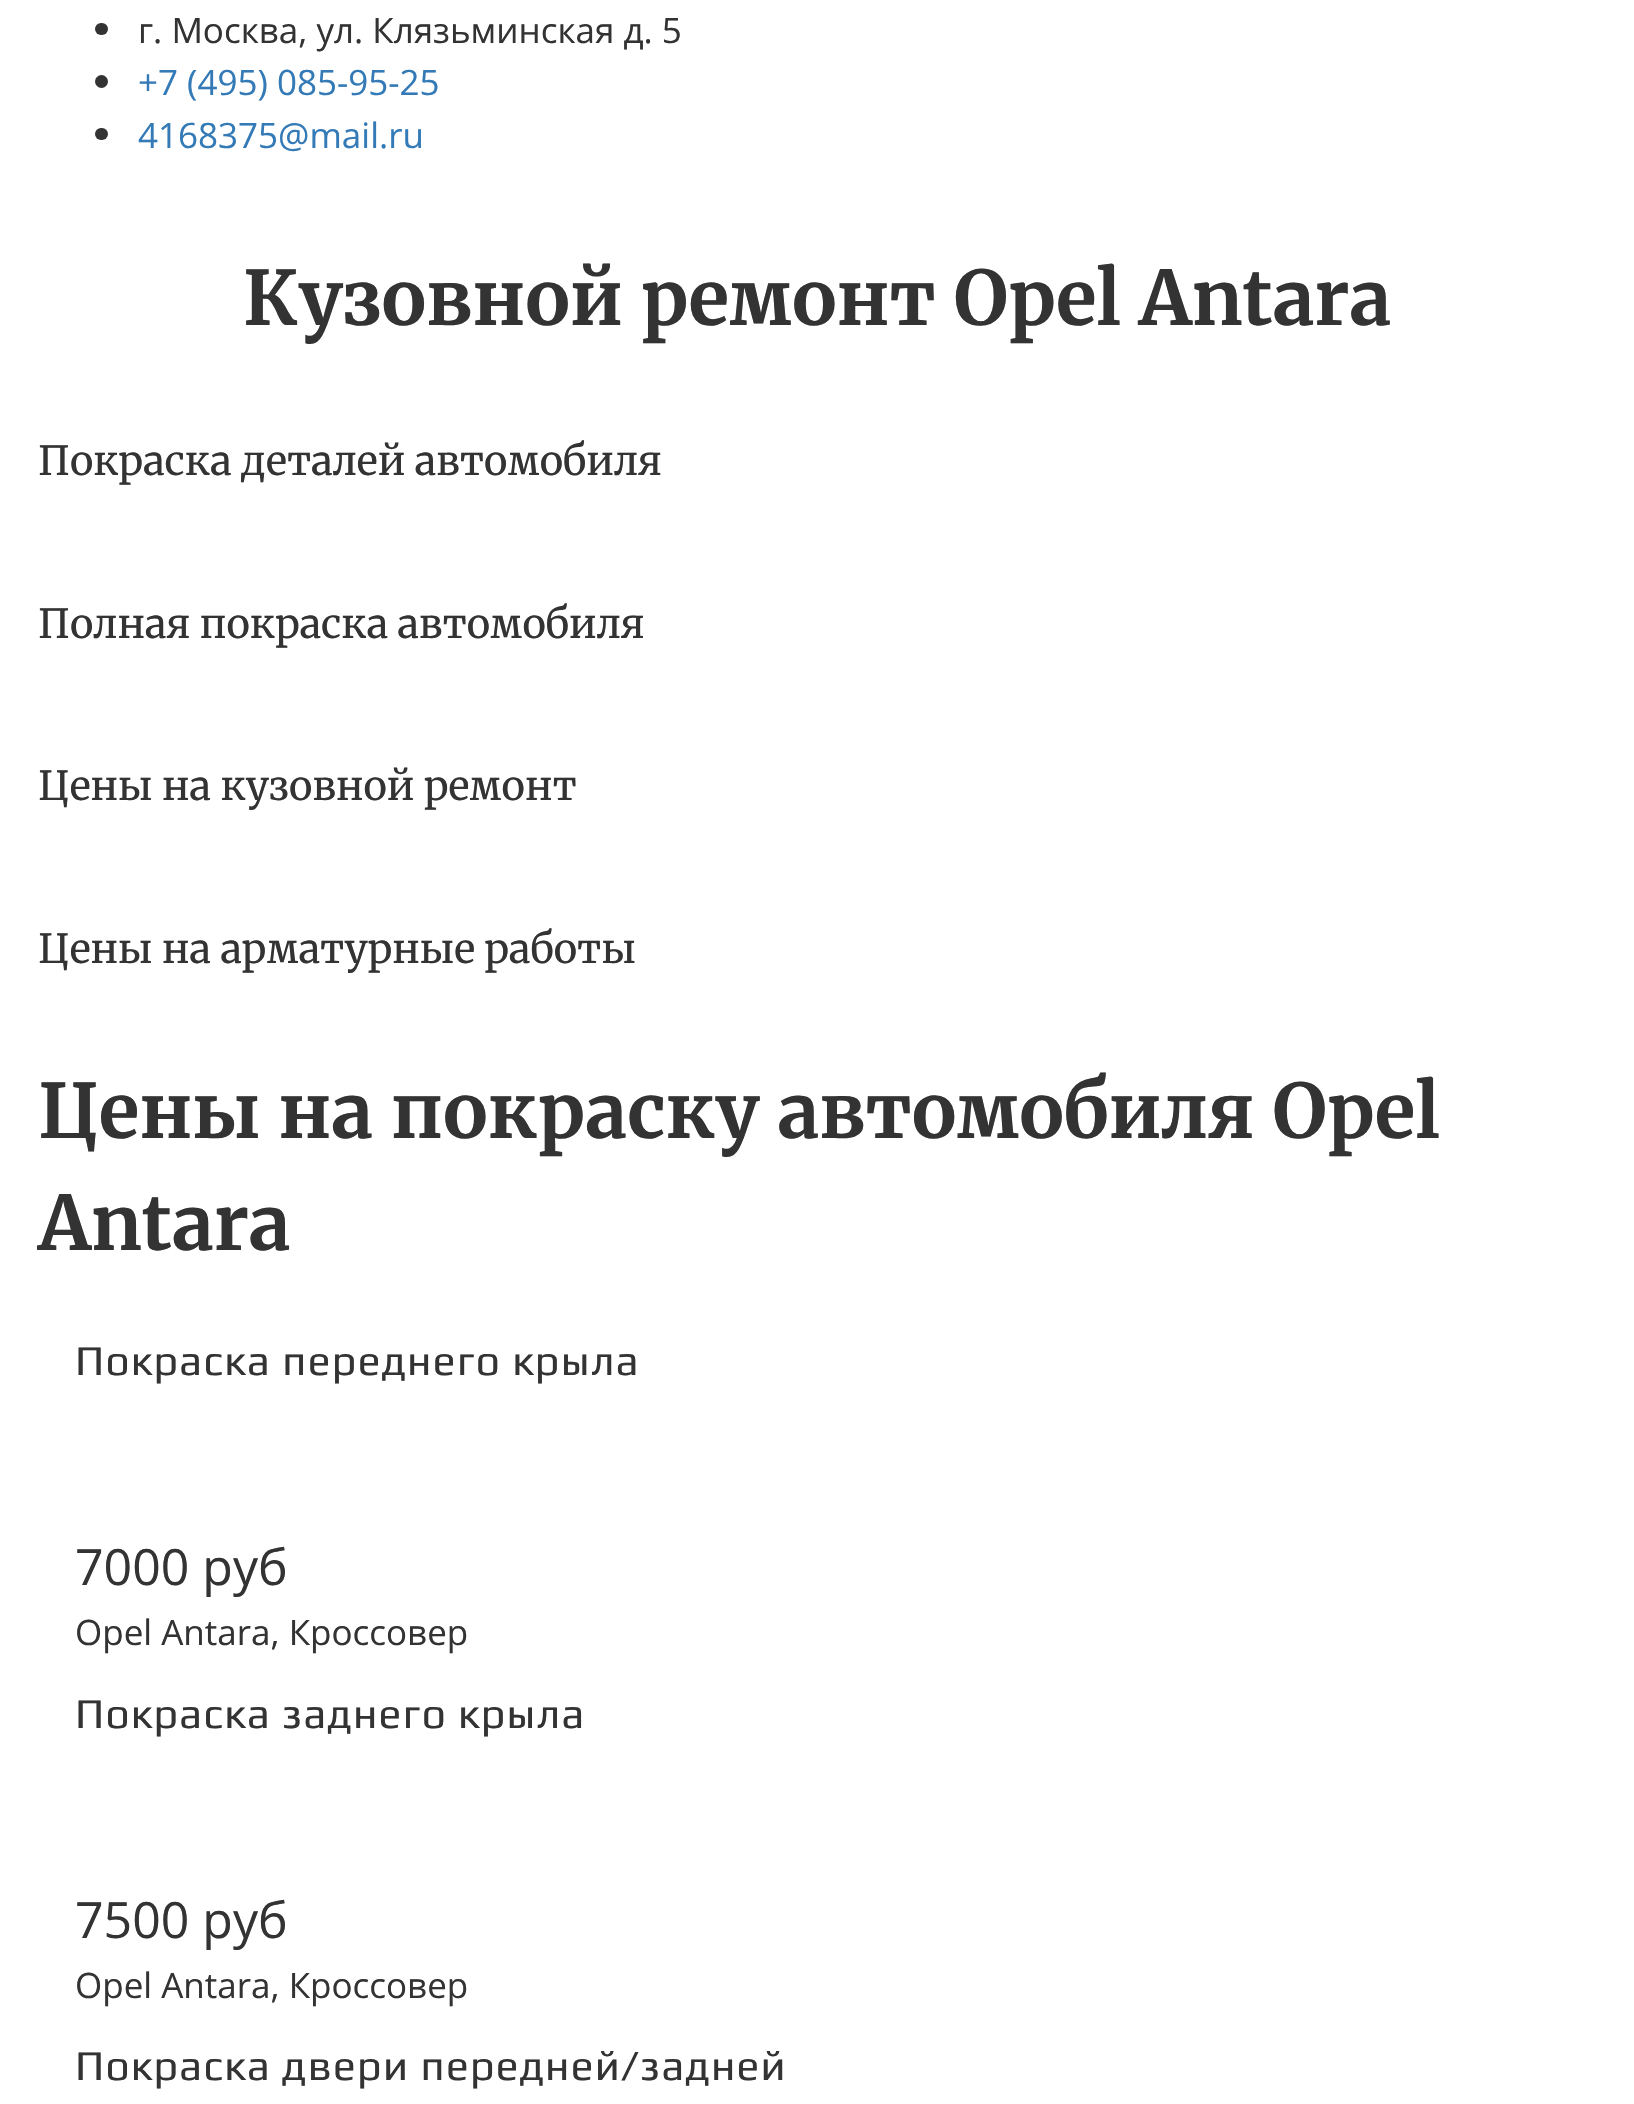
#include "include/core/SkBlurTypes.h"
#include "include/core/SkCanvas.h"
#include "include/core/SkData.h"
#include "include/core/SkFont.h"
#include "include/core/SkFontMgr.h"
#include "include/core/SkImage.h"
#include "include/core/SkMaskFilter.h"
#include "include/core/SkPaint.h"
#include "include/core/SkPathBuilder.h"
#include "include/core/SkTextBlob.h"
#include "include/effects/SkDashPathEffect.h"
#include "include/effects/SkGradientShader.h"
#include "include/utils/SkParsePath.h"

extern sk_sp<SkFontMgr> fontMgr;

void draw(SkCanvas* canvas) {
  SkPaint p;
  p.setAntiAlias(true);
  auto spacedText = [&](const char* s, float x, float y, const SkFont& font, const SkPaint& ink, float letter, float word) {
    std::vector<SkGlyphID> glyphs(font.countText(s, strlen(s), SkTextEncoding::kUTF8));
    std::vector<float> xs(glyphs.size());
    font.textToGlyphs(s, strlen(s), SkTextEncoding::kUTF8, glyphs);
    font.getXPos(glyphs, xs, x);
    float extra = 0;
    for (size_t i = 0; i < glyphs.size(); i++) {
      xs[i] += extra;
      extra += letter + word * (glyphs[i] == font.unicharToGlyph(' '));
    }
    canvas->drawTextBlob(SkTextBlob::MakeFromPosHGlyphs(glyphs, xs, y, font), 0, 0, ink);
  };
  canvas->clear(SK_ColorWHITE);
  p.setColor(SkColorSetRGB(51, 51, 51));
  canvas->drawRoundRect(SkRect::MakeLTRB(95, 23, 108, 35), 6, 6, p);
  canvas->drawCircle(101.5f, 81.5f, 6.5f, p);
  canvas->drawRoundRect(SkRect::MakeLTRB(95, 128, 108, 140), 6, 6, p);
  SkFont font1(fontMgr->matchFamilyStyle("Open Sans", SkFontStyle::Normal()), 35);
  font1.setSubpixel(true);
  canvas->drawString("г. Москва, ул. Клязьминская д. 5", 138, 43, font1, p);
  p.setColor(SkColorSetRGB(51, 122, 183));
  canvas->drawString("+7 (495) 085-95-25", 138, 95, font1, p);
  canvas->drawString("4168375@mail.ru", 138, 148, font1, p);
  SkFont font2(fontMgr->matchFamilyStyle("Merriweather", SkFontStyle::Bold()), 75);
  font2.setSubpixel(true);
  p.setColor(SkColorSetRGB(51, 51, 51));
  canvas->drawString("Кузовной ремонт Opel Antara", 243, 325, font2, p);
  SkFont font3(fontMgr->matchFamilyStyle("Merriweather", SkFontStyle::Normal()), 40);
  font3.setSubpixel(true);
  canvas->drawString("Покраска деталей автомобиля", 38, 475, font3, p);
  canvas->drawString("Полная покраска автомобиля", 38, 638, font3, p);
  canvas->drawString("Цены на кузовной ремонт", 38, 800, font3, p);
  canvas->drawString("Цены на арматурные работы", 38, 963, font3, p);
  canvas->drawString("Цены на покраску автомобиля Opel", 38, 1138, font2, p);
  canvas->drawString("Antara", 38, 1250, font2, p);
  SkFont font4(fontMgr->matchFamilyStyle("Play", SkFontStyle::Normal()), 42.5f);
  font4.setSubpixel(true);
  spacedText("Покраска переднего крыла", 75, 1375, font4, p, 1.25f, 0);
  SkFont font5(fontMgr->matchFamilyStyle("Open Sans", SkFontStyle::Normal()), 50);
  font5.setSubpixel(true);
  canvas->drawString("7000 руб", 75, 1585, font5, p);
  canvas->drawString("Opel Antara, Кроссовер", 75, 1645, font1, p);
  spacedText("Покраска заднего крыла", 75, 1728, font4, p, 1.25f, 0);
  canvas->drawString("7500 руб", 75, 1938, font5, p);
  canvas->drawString("Opel Antara, Кроссовер", 75, 1998, font1, p);
  spacedText("Покраска двери передней/задней", 75, 2080, font4, p, 1.25f, 0);
}
